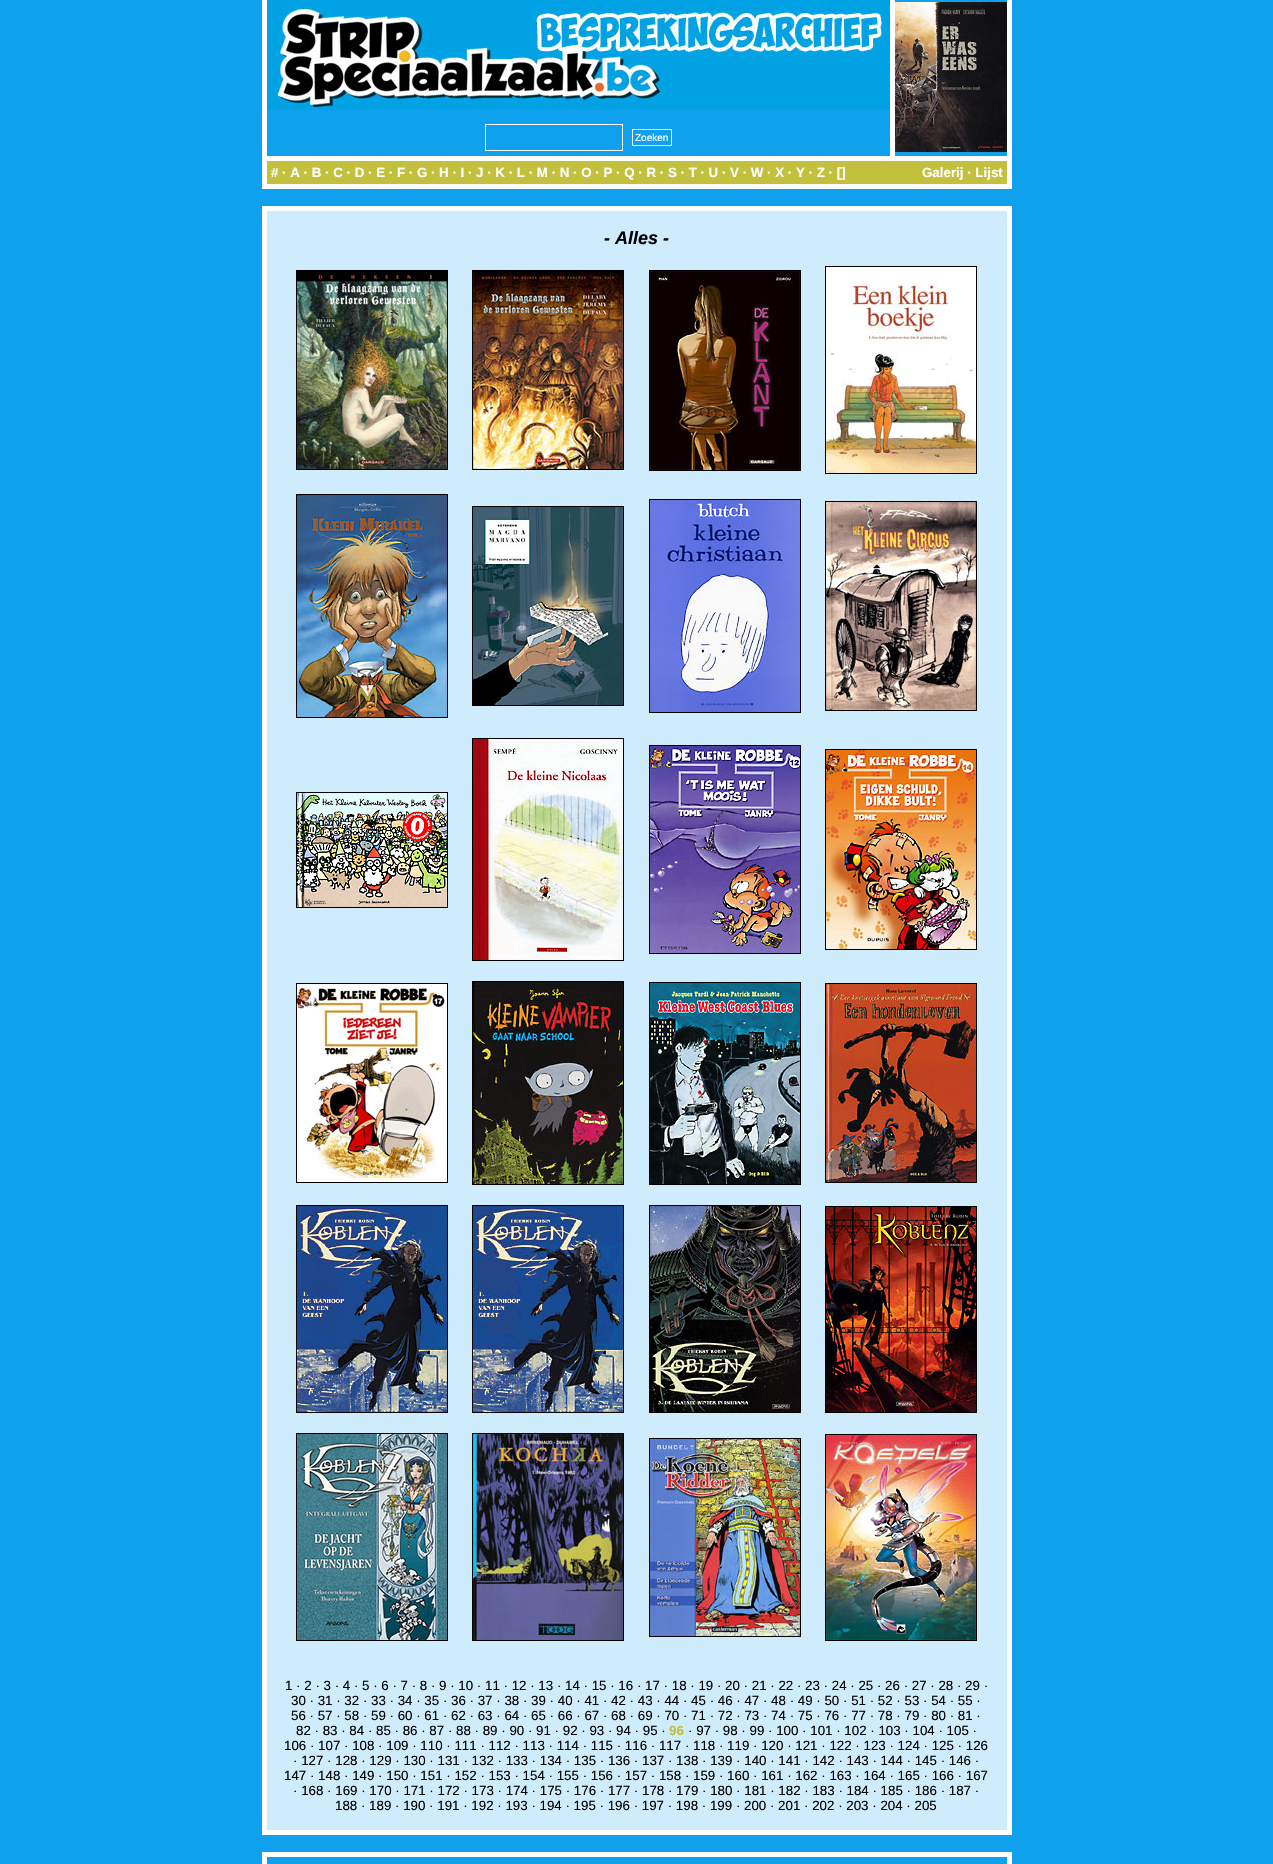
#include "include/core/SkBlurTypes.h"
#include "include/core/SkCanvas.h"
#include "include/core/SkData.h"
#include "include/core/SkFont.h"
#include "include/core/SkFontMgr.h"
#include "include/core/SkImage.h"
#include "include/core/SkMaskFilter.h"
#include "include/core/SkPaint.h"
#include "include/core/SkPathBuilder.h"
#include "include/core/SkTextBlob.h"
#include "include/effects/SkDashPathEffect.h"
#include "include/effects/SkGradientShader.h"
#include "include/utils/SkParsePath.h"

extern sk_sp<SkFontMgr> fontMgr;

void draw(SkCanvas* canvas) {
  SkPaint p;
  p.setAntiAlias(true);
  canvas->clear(SkColorSetRGB(15, 161, 238));
  p.setColor(SK_ColorWHITE);
  canvas->drawRect(SkRect::MakeLTRB(1007, 0, 1012, 189), p);
  canvas->drawRect(SkRect::MakeLTRB(262, 184, 1012, 189), p);
  canvas->drawRect(SkRect::MakeLTRB(262, 0, 267, 189), p);
  canvas->drawImageRect(SkImages::DeferredFromEncodedData(SkData::MakeFromFileName("images/1.png")), SkRect::MakeLTRB(267, 0, 890, 110), SkSamplingOptions());
  p.setStyle(SkPaint::kStroke_Style);
  p.setStrokeWidth(1);
  canvas->drawRect(SkRect::MakeLTRB(485.5f, 124.5f, 622.5f, 150.5f), p);
  canvas->drawRect(SkRect::MakeLTRB(632.5f, 129.5f, 671.5f, 145.5f), p);
  p.setStyle(SkPaint::kFill_Style);
  canvas->drawRect(SkRect::MakeLTRB(890, 0, 895, 156), p);
  canvas->drawImageRect(SkImages::DeferredFromEncodedData(SkData::MakeFromFileName("images/2.png")), SkRect::MakeLTRB(895, 2, 1007, 152), SkSamplingOptions());
  canvas->drawRect(SkRect::MakeLTRB(267, 156, 1007, 161), p);
  p.setColor(SkColorSetRGB(195, 192, 61));
  canvas->drawRect(SkRect::MakeLTRB(267, 161, 1007, 184), p);
  p.setColor(SkColorSetRGB(207, 236, 252));
  canvas->drawRect(SkRect::MakeLTRB(264.5f, 208.5f, 1009.5f, 1832.5f), p);
  p.setStyle(SkPaint::kStroke_Style);
  p.setStrokeWidth(5);
  p.setColor(SK_ColorWHITE);
  canvas->drawRect(SkRect::MakeLTRB(264.5f, 208.5f, 1009.5f, 1832.5f), p);
  p.setStrokeWidth(1);
  p.setColor(SK_ColorBLACK);
  canvas->drawRect(SkRect::MakeLTRB(296.5f, 270.5f, 447.5f, 469.5f), p);
  canvas->drawImageRect(SkImages::DeferredFromEncodedData(SkData::MakeFromFileName("images/3.png")), SkRect::MakeLTRB(297, 271, 447, 469), SkSamplingOptions());
  canvas->drawRect(SkRect::MakeLTRB(472.5f, 270.5f, 623.5f, 469.5f), p);
  canvas->drawImageRect(SkImages::DeferredFromEncodedData(SkData::MakeFromFileName("images/4.png")), SkRect::MakeLTRB(473, 271, 623, 469), SkSamplingOptions());
  canvas->drawRect(SkRect::MakeLTRB(649.5f, 270.5f, 800.5f, 470.5f), p);
  canvas->drawImageRect(SkImages::DeferredFromEncodedData(SkData::MakeFromFileName("images/5.png")), SkRect::MakeLTRB(650, 271, 800, 470), SkSamplingOptions());
  canvas->drawRect(SkRect::MakeLTRB(825.5f, 266.5f, 976.5f, 473.5f), p);
  canvas->drawImageRect(SkImages::DeferredFromEncodedData(SkData::MakeFromFileName("images/6.png")), SkRect::MakeLTRB(826, 267, 976, 473), SkSamplingOptions());
  canvas->drawRect(SkRect::MakeLTRB(296.5f, 494.5f, 447.5f, 717.5f), p);
  canvas->drawImageRect(SkImages::DeferredFromEncodedData(SkData::MakeFromFileName("images/7.png")), SkRect::MakeLTRB(297, 495, 447, 717), SkSamplingOptions());
  canvas->drawRect(SkRect::MakeLTRB(472.5f, 506.5f, 623.5f, 705.5f), p);
  canvas->drawImageRect(SkImages::DeferredFromEncodedData(SkData::MakeFromFileName("images/8.png")), SkRect::MakeLTRB(473, 507, 623, 705), SkSamplingOptions());
  canvas->drawRect(SkRect::MakeLTRB(649.5f, 499.5f, 800.5f, 712.5f), p);
  canvas->drawImageRect(SkImages::DeferredFromEncodedData(SkData::MakeFromFileName("images/9.png")), SkRect::MakeLTRB(650, 500, 800, 712), SkSamplingOptions());
  canvas->drawRect(SkRect::MakeLTRB(825.5f, 501.5f, 976.5f, 710.5f), p);
  canvas->drawImageRect(SkImages::DeferredFromEncodedData(SkData::MakeFromFileName("images/10.png")), SkRect::MakeLTRB(826, 502, 976, 710), SkSamplingOptions());
  canvas->drawRect(SkRect::MakeLTRB(296.5f, 792.5f, 447.5f, 907.5f), p);
  canvas->drawImageRect(SkImages::DeferredFromEncodedData(SkData::MakeFromFileName("images/11.png")), SkRect::MakeLTRB(297, 793, 447, 907), SkSamplingOptions());
  canvas->drawRect(SkRect::MakeLTRB(472.5f, 738.5f, 623.5f, 960.5f), p);
  canvas->drawImageRect(SkImages::DeferredFromEncodedData(SkData::MakeFromFileName("images/12.png")), SkRect::MakeLTRB(473, 739, 623, 960), SkSamplingOptions());
  canvas->drawRect(SkRect::MakeLTRB(649.5f, 745.5f, 800.5f, 953.5f), p);
  canvas->drawImageRect(SkImages::DeferredFromEncodedData(SkData::MakeFromFileName("images/13.png")), SkRect::MakeLTRB(650, 746, 800, 953), SkSamplingOptions());
  canvas->drawRect(SkRect::MakeLTRB(825.5f, 749.5f, 976.5f, 949.5f), p);
  canvas->drawImageRect(SkImages::DeferredFromEncodedData(SkData::MakeFromFileName("images/14.png")), SkRect::MakeLTRB(826, 750, 976, 949), SkSamplingOptions());
  canvas->drawRect(SkRect::MakeLTRB(296.5f, 983.5f, 447.5f, 1182.5f), p);
  canvas->drawImageRect(SkImages::DeferredFromEncodedData(SkData::MakeFromFileName("images/15.png")), SkRect::MakeLTRB(297, 984, 447, 1182), SkSamplingOptions());
  canvas->drawRect(SkRect::MakeLTRB(472.5f, 981.5f, 623.5f, 1184.5f), p);
  canvas->drawImageRect(SkImages::DeferredFromEncodedData(SkData::MakeFromFileName("images/16.png")), SkRect::MakeLTRB(473, 982, 623, 1184), SkSamplingOptions());
  canvas->drawRect(SkRect::MakeLTRB(649.5f, 982.5f, 800.5f, 1184.5f), p);
  canvas->drawImageRect(SkImages::DeferredFromEncodedData(SkData::MakeFromFileName("images/17.png")), SkRect::MakeLTRB(650, 983, 800, 1184), SkSamplingOptions());
  canvas->drawRect(SkRect::MakeLTRB(825.5f, 983.5f, 976.5f, 1182.5f), p);
  canvas->drawImageRect(SkImages::DeferredFromEncodedData(SkData::MakeFromFileName("images/18.png")), SkRect::MakeLTRB(826, 984, 976, 1182), SkSamplingOptions());
  canvas->drawRect(SkRect::MakeLTRB(296.5f, 1205.5f, 447.5f, 1412.5f), p);
  canvas->drawImageRect(SkImages::DeferredFromEncodedData(SkData::MakeFromFileName("images/19.png")), SkRect::MakeLTRB(297, 1206, 447, 1412), SkSamplingOptions());
  canvas->drawRect(SkRect::MakeLTRB(472.5f, 1205.5f, 623.5f, 1412.5f), p);
  canvas->drawImageRect(SkImages::DeferredFromEncodedData(SkData::MakeFromFileName("images/20.png")), SkRect::MakeLTRB(473, 1206, 623, 1412), SkSamplingOptions());
  canvas->drawRect(SkRect::MakeLTRB(649.5f, 1205.5f, 800.5f, 1412.5f), p);
  canvas->drawImageRect(SkImages::DeferredFromEncodedData(SkData::MakeFromFileName("images/21.png")), SkRect::MakeLTRB(650, 1206, 800, 1412), SkSamplingOptions());
  canvas->drawRect(SkRect::MakeLTRB(825.5f, 1206.5f, 976.5f, 1412.5f), p);
  canvas->drawImageRect(SkImages::DeferredFromEncodedData(SkData::MakeFromFileName("images/22.png")), SkRect::MakeLTRB(826, 1207, 976, 1412), SkSamplingOptions());
  canvas->drawRect(SkRect::MakeLTRB(296.5f, 1433.5f, 447.5f, 1640.5f), p);
  canvas->drawImageRect(SkImages::DeferredFromEncodedData(SkData::MakeFromFileName("images/23.png")), SkRect::MakeLTRB(297, 1434, 447, 1640), SkSamplingOptions());
  canvas->drawRect(SkRect::MakeLTRB(472.5f, 1433.5f, 623.5f, 1640.5f), p);
  canvas->drawImageRect(SkImages::DeferredFromEncodedData(SkData::MakeFromFileName("images/24.png")), SkRect::MakeLTRB(473, 1434, 623, 1640), SkSamplingOptions());
  canvas->drawRect(SkRect::MakeLTRB(649.5f, 1438.5f, 800.5f, 1636.5f), p);
  canvas->drawImageRect(SkImages::DeferredFromEncodedData(SkData::MakeFromFileName("images/25.png")), SkRect::MakeLTRB(650, 1439, 800, 1636), SkSamplingOptions());
  canvas->drawRect(SkRect::MakeLTRB(825.5f, 1434.5f, 976.5f, 1640.5f), p);
  canvas->drawImageRect(SkImages::DeferredFromEncodedData(SkData::MakeFromFileName("images/26.png")), SkRect::MakeLTRB(826, 1435, 976, 1640), SkSamplingOptions());
  p.setStyle(SkPaint::kFill_Style);
  p.setColor(SK_ColorWHITE);
  canvas->drawRect(SkRect::MakeLTRB(262, 1852, 1012, 1857), p);
  canvas->drawRect(SkRect::MakeLTRB(1007, 1852, 1012, 1864), p);
  canvas->drawRect(SkRect::MakeLTRB(262, 1852, 267, 1864), p);
  SkFont font1(fontMgr->matchFamilyStyle("Liberation Sans", SkFontStyle::Normal()), 10);
  font1.setSubpixel(true);
  canvas->drawString("Zoeken", 635, 141, font1, p);
  SkFont font2(fontMgr->matchFamilyStyle("Liberation Sans", SkFontStyle::Bold()), 13.33f);
  font2.setSubpixel(true);
  canvas->drawString("# · A · B · C · D · E · F · G · H · I · J · K · L · M · N · O · P · Q · R · S · T · U · V · W · X · Y · Z · []", 271, 177, font2, p);
  canvas->drawString("Galerij · Lijst", 922, 177, font2, p);
  SkFont font3(fontMgr->matchFamilyStyle("Liberation Sans", SkFontStyle::BoldItalic()), 18);
  font3.setSubpixel(true);
  p.setColor(SK_ColorBLACK);
  canvas->drawString("- Alles -", 604, 244, font3, p);
  SkFont font4(fontMgr->matchFamilyStyle("Liberation Sans", SkFontStyle::Normal()), 13.33f);
  font4.setSubpixel(true);
  canvas->drawString("1 · 2 · 3 · 4 · 5 · 6 · 7 · 8 · 9 · 10 · 11 · 12 · 13 · 14 · 15 · 16 · 17 · 18 · 19 · 20 · 21 · 22 · 23 · 24 · 25 · 26 · 27 · 28 · 29 ·", 285, 1690, font4, p);
  canvas->drawString("30 · 31 · 32 · 33 · 34 · 35 · 36 · 37 · 38 · 39 · 40 · 41 · 42 · 43 · 44 · 45 · 46 · 47 · 48 · 49 · 50 · 51 · 52 · 53 · 54 · 55 ·", 291, 1705, font4, p);
  canvas->drawString("56 · 57 · 58 · 59 · 60 · 61 · 62 · 63 · 64 · 65 · 66 · 67 · 68 · 69 · 70 · 71 · 72 · 73 · 74 · 75 · 76 · 77 · 78 · 79 · 80 · 81 ·", 291, 1720, font4, p);
  canvas->drawString("82 · 83 · 84 · 85 · 86 · 87 · 88 · 89 · 90 · 91 · 92 · 93 · 94 · 95 ·", 296, 1735, font4, p);
  p.setColor(SkColorSetRGB(195, 192, 61));
  canvas->drawString("96", 669, 1735, font2, p);
  p.setColor(SK_ColorBLACK);
  canvas->drawString("· 97 · 98 · 99 · 100 · 101 · 102 · 103 · 104 · 105 ·", 688, 1735, font4, p);
  canvas->drawString("106 · 107 · 108 · 109 · 110 · 111 · 112 · 113 · 114 · 115 · 116 · 117 · 118 · 119 · 120 · 121 · 122 · 123 · 124 · 125 · 126", 284, 1750, font4, p);
  canvas->drawString("· 127 · 128 · 129 · 130 · 131 · 132 · 133 · 134 · 135 · 136 · 137 · 138 · 139 · 140 · 141 · 142 · 143 · 144 · 145 · 146 ·", 293, 1765, font4, p);
  canvas->drawString("147 · 148 · 149 · 150 · 151 · 152 · 153 · 154 · 155 · 156 · 157 · 158 · 159 · 160 · 161 · 162 · 163 · 164 · 165 · 166 · 167", 284, 1780, font4, p);
  canvas->drawString("· 168 · 169 · 170 · 171 · 172 · 173 · 174 · 175 · 176 · 177 · 178 · 179 · 180 · 181 · 182 · 183 · 184 · 185 · 186 · 187 ·", 293, 1795, font4, p);
  canvas->drawString("188 · 189 · 190 · 191 · 192 · 193 · 194 · 195 · 196 · 197 · 198 · 199 · 200 · 201 · 202 · 203 · 204 · 205", 335, 1810, font4, p);
}
